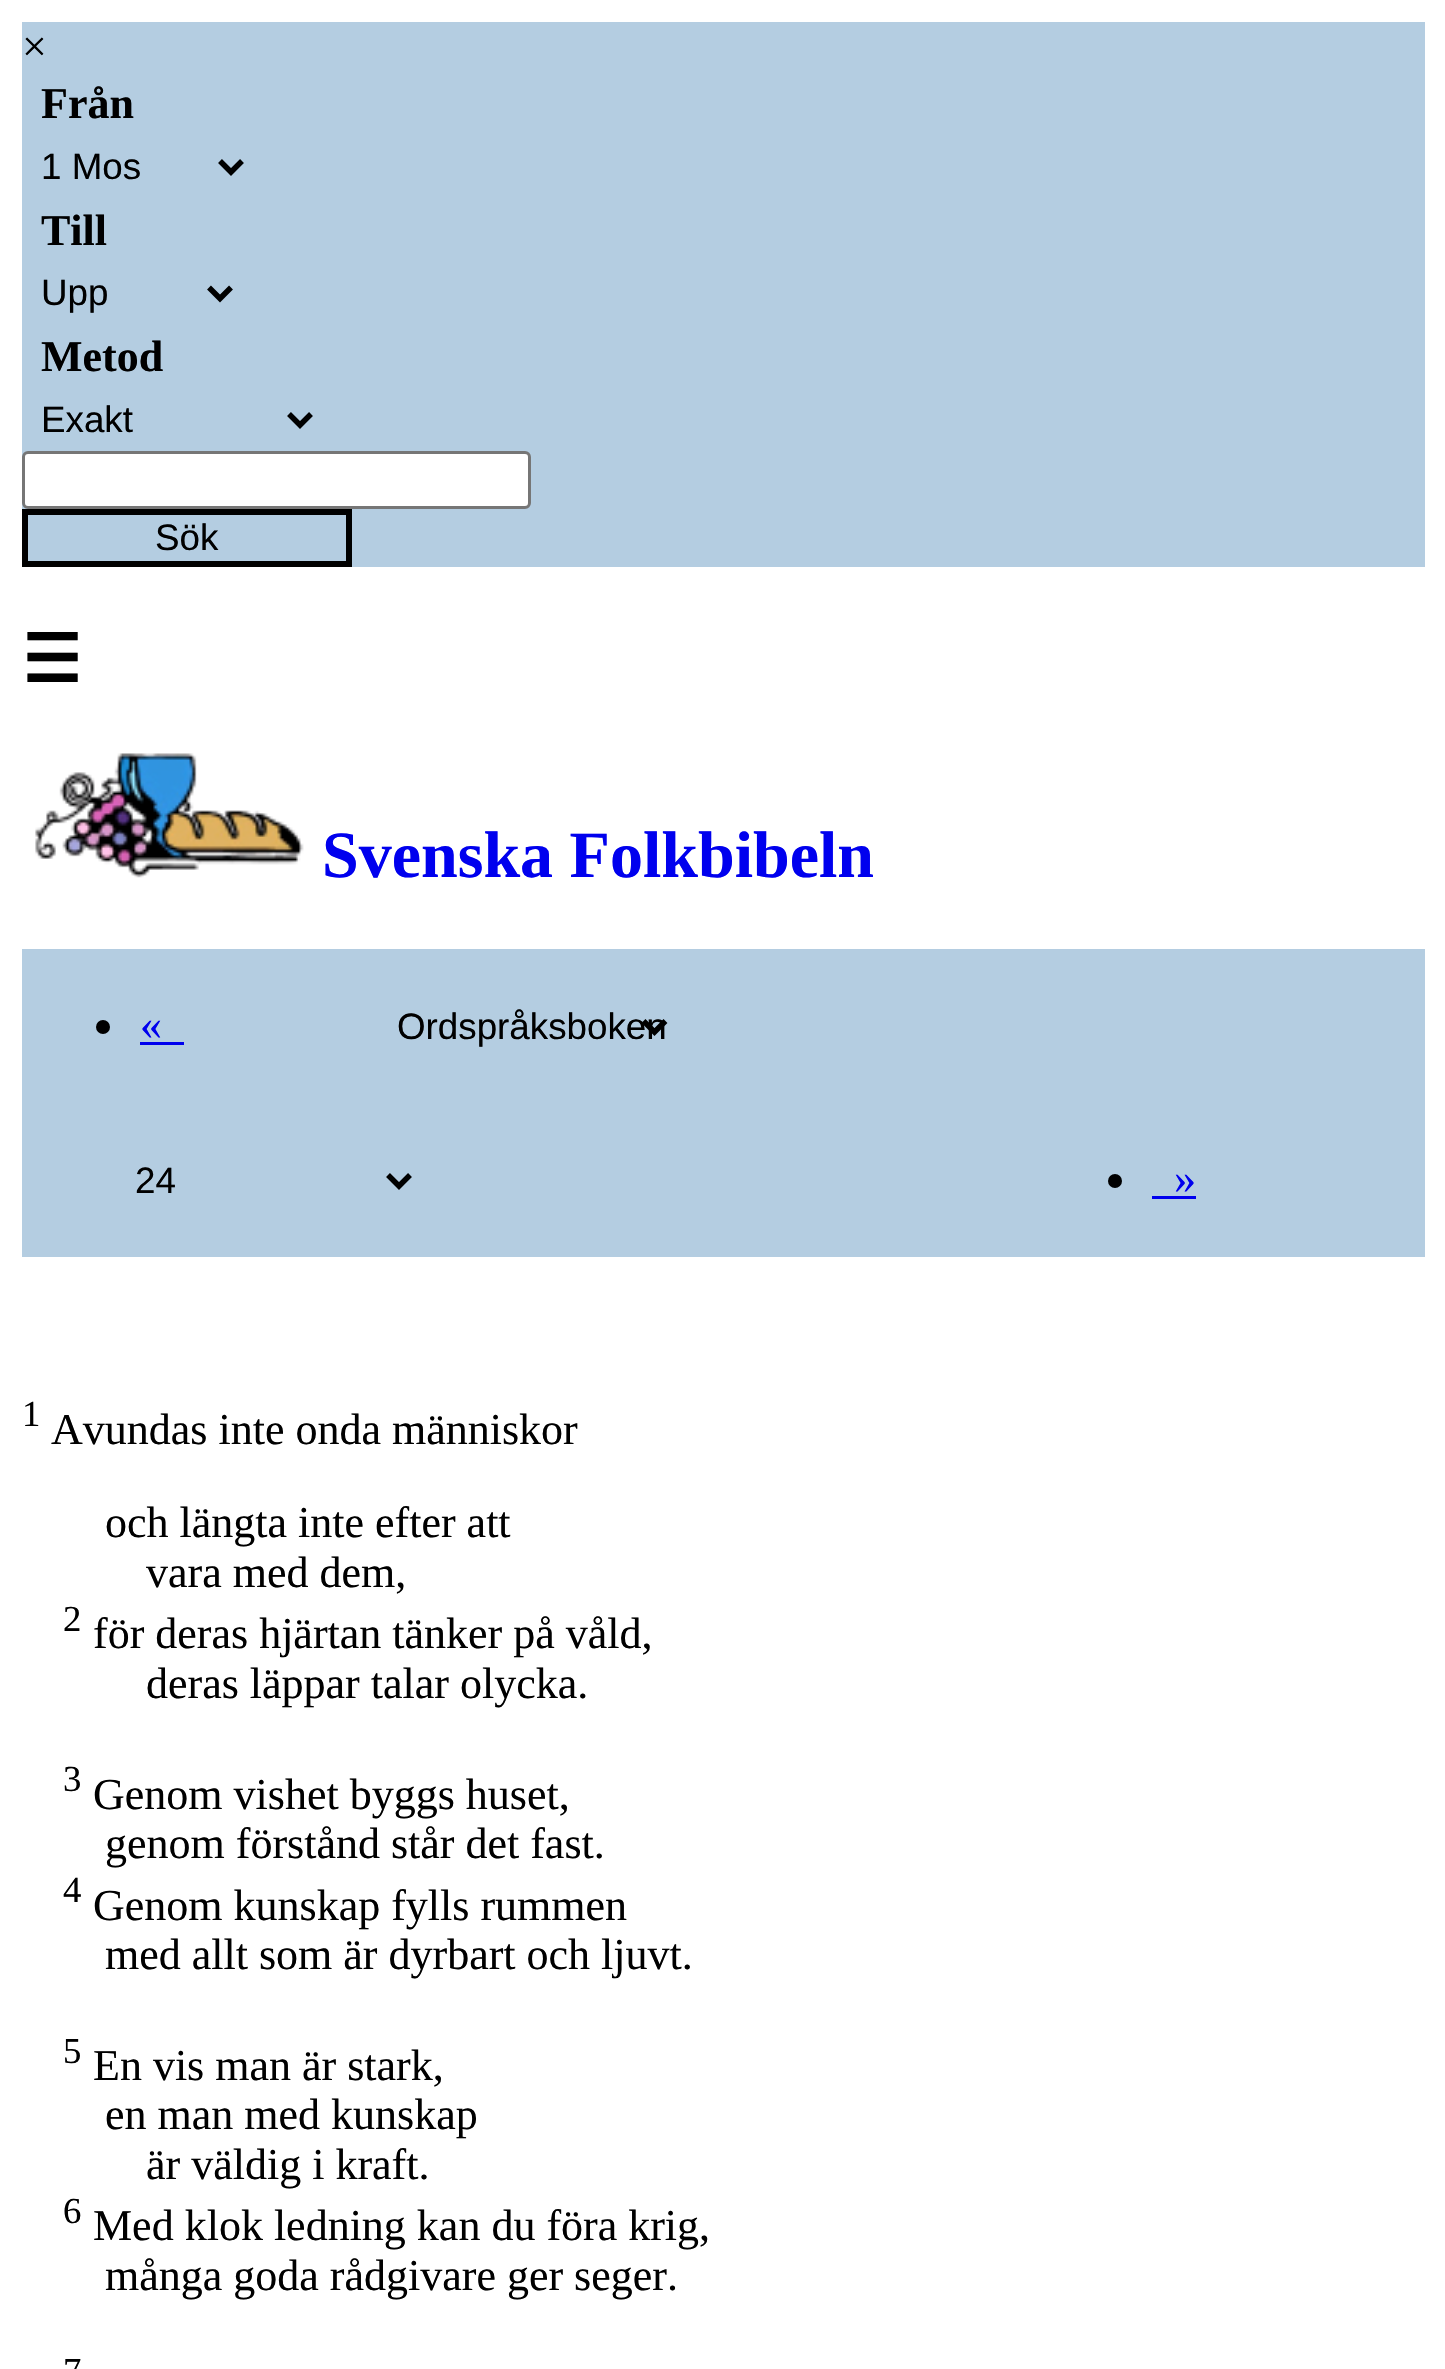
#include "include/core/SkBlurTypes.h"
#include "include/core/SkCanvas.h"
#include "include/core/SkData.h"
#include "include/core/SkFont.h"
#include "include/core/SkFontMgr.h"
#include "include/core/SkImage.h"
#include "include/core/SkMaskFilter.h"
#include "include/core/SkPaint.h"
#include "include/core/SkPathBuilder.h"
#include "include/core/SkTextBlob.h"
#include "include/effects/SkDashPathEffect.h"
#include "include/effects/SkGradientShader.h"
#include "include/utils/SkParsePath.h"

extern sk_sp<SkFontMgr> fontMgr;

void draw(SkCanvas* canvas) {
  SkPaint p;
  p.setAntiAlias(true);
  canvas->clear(SK_ColorWHITE);
  p.setColor(SkColorSetRGB(180, 205, 225));
  canvas->drawRect(SkRect::MakeLTRB(22, 22, 1425, 567), p);
  p.setStyle(SkPaint::kStroke_Style);
  p.setStrokeWidth(5.5f);
  p.setColor(SK_ColorBLACK);
  canvas->drawPath(SkPathBuilder().moveTo(220, 161).lineTo(231, 172).lineTo(242, 161).detach(), p);
  canvas->drawPath(SkPathBuilder().moveTo(209, 287.5f).lineTo(220, 298.5f).lineTo(231, 287.5f).detach(), p);
  canvas->drawPath(SkPathBuilder().moveTo(289, 414).lineTo(300, 425).lineTo(311, 414).detach(), p);
  p.setStyle(SkPaint::kFill_Style);
  p.setColor(SK_ColorWHITE);
  canvas->drawRoundRect(SkRect::MakeLTRB(23.5f, 452.5f, 529.5f, 507.5f), 4.5f, 4.5f, p);
  p.setStyle(SkPaint::kStroke_Style);
  p.setStrokeWidth(3);
  p.setColor(SkColorSetRGB(118, 118, 118));
  canvas->drawRoundRect(SkRect::MakeLTRB(23.5f, 452.5f, 529.5f, 507.5f), 4.5f, 4.5f, p);
  p.setStrokeWidth(6);
  p.setColor(SK_ColorBLACK);
  canvas->drawRect(SkRect::MakeLTRB(25, 512, 349, 564), p);
  canvas->drawImageRect(SkImages::DeferredFromEncodedData(SkData::MakeFromFileName("images/1.png")), SkRect::MakeLTRB(35, 753, 304, 878), SkSamplingOptions());
  p.setStyle(SkPaint::kFill_Style);
  p.setColor(SkColorSetRGB(180, 205, 225));
  canvas->drawRect(SkRect::MakeLTRB(22, 949, 1425, 1257), p);
  p.setColor(SK_ColorBLACK);
  canvas->drawCircle(103, 1027, 7, p);
  p.setColor(SkColorSetRGB(0, 0, 238));
  canvas->drawRect(SkRect::MakeLTRB(140, 1042, 184, 1045), p);
  p.setStyle(SkPaint::kStroke_Style);
  p.setStrokeWidth(5.5f);
  p.setColor(SK_ColorBLACK);
  canvas->drawPath(SkPathBuilder().moveTo(643.5f, 1021).lineTo(654.5f, 1032).lineTo(665.5f, 1021).detach(), p);
  canvas->drawPath(SkPathBuilder().moveTo(388, 1175).lineTo(399, 1186).lineTo(410, 1175).detach(), p);
  p.setStyle(SkPaint::kFill_Style);
  canvas->drawCircle(1115, 1181, 7, p);
  p.setColor(SkColorSetRGB(0, 0, 238));
  canvas->drawRect(SkRect::MakeLTRB(1152, 1196, 1196, 1199), p);
  SkFont font1(fontMgr->matchFamilyStyle("Liberation Serif", SkFontStyle::Normal()), 44);
  font1.setSubpixel(true);
  p.setColor(SK_ColorBLACK);
  canvas->drawString("×", 22, 61, font1, p);
  SkFont font2(fontMgr->matchFamilyStyle("Liberation Serif", SkFontStyle::Bold()), 44);
  font2.setSubpixel(true);
  canvas->drawString("Från", 41, 118, font2, p);
  SkFont font3(fontMgr->matchFamilyStyle("Liberation Sans", SkFontStyle::Normal()), 36.75f);
  font3.setSubpixel(true);
  canvas->drawString("1 Mos", 41, 179, font3, p);
  canvas->drawString("Till", 41, 245, font2, p);
  canvas->drawString("Upp", 41, 305, font3, p);
  canvas->drawString("Metod", 41, 371, font2, p);
  canvas->drawString("Exakt", 41, 432, font3, p);
  canvas->drawString("Sök", 155, 550, font3, p);
  SkFont font4(fontMgr->matchFamilyStyle("DejaVu Sans", SkFontStyle::Bold()), 66);
  font4.setSubpixel(true);
  canvas->drawString("☰", 22, 682, font4, p);
  SkFont font5(fontMgr->matchFamilyStyle("Liberation Serif", SkFontStyle::Bold()), 66);
  font5.setSubpixel(true);
  p.setColor(SkColorSetRGB(0, 0, 238));
  canvas->drawString("Svenska Folkbibeln", 322, 877, font5, p);
  canvas->drawString("«", 140, 1039, font1, p);
  p.setColor(SK_ColorBLACK);
  canvas->drawString("Ordspråksboken", 397, 1039, font3, p);
  canvas->drawString("24", 135, 1193, font3, p);
  p.setColor(SkColorSetRGB(0, 0, 238));
  canvas->drawString("»", 1174, 1193, font1, p);
  SkFont font6(fontMgr->matchFamilyStyle("Liberation Serif", SkFontStyle::Normal()), 36.75f);
  font6.setSubpixel(true);
  p.setColor(SK_ColorBLACK);
  canvas->drawString("1", 22, 1426, font6, p);
  canvas->drawString("Avundas inte onda människor", 51, 1444, font1, p);
  canvas->drawString("och längta inte efter att", 105, 1537, font1, p);
  canvas->drawString("vara med dem,", 146, 1587, font1, p);
  canvas->drawString("2", 63, 1631, font6, p);
  canvas->drawString("för deras hjärtan tänker på våld,", 93, 1648, font1, p);
  canvas->drawString("deras läppar talar olycka.", 146, 1698, font1, p);
  canvas->drawString("3", 63, 1791, font6, p);
  canvas->drawString("Genom vishet byggs huset,", 93, 1809, font1, p);
  canvas->drawString("genom förstånd står det fast.", 105, 1858, font1, p);
  canvas->drawString("4", 63, 1902, font6, p);
  canvas->drawString("Genom kunskap fylls rummen", 93, 1920, font1, p);
  canvas->drawString("med allt som är dyrbart och ljuvt.", 105, 1969, font1, p);
  canvas->drawString("5", 63, 2063, font6, p);
  canvas->drawString("En vis man är stark,", 93, 2080, font1, p);
  canvas->drawString("en man med kunskap", 105, 2129, font1, p);
  canvas->drawString("är väldig i kraft.", 146, 2179, font1, p);
  canvas->drawString("6", 63, 2223, font6, p);
  canvas->drawString("Med klok ledning kan du föra krig,", 93, 2240, font1, p);
  canvas->drawString("många goda rådgivare ger seger.", 105, 2290, font1, p);
  canvas->drawString("7", 63, 2383, font6, p);
}
